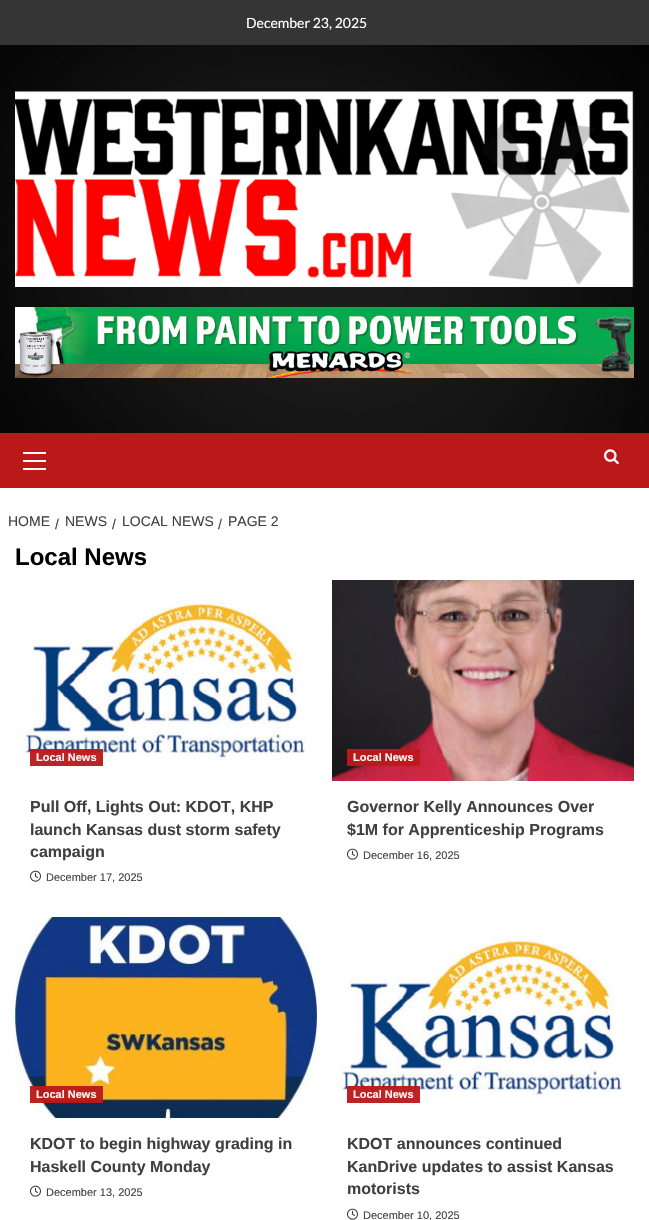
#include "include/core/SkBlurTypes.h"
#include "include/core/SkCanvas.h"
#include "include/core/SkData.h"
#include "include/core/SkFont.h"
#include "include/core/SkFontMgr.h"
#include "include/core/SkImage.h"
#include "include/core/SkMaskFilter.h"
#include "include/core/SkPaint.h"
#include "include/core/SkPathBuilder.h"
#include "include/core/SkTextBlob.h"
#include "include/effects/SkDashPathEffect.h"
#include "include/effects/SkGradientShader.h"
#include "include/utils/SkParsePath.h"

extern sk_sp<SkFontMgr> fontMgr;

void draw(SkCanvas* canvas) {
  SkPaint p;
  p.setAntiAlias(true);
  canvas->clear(SK_ColorWHITE);
  p.setColor(SkColorSetRGB(53, 53, 53));
  canvas->drawRect(SkRect::MakeLTRB(0, 0, 649, 45), p);
  canvas->drawImageRect(SkImages::DeferredFromEncodedData(SkData::MakeFromFileName("images/1.png")), SkRect::MakeLTRB(0, 45, 649, 433), SkSamplingOptions());
  canvas->drawImageRect(SkImages::DeferredFromEncodedData(SkData::MakeFromFileName("images/2.png")), SkRect::MakeLTRB(15, 91, 634, 287), SkSamplingOptions());
  canvas->drawImageRect(SkImages::DeferredFromEncodedData(SkData::MakeFromFileName("images/3.png")), SkRect::MakeLTRB(15, 307, 634, 378), SkSamplingOptions());
  p.setColor(SkColorSetRGB(187, 25, 25));
  canvas->drawRect(SkRect::MakeLTRB(0, 433, 649, 488), p);
  p.setColor(SK_ColorWHITE);
  canvas->drawRect(SkRect::MakeLTRB(23, 460, 46, 462), p);
  canvas->drawRect(SkRect::MakeLTRB(23, 452, 46, 454), p);
  canvas->drawRect(SkRect::MakeLTRB(23, 468, 46, 470), p);
  canvas->drawImageRect(SkImages::DeferredFromEncodedData(SkData::MakeFromFileName("images/4.png")), SkRect::MakeLTRB(604, 449, 619, 465), SkSamplingOptions());
  canvas->drawImageRect(SkImages::DeferredFromEncodedData(SkData::MakeFromFileName("images/5.png")), SkRect::MakeLTRB(15, 580, 317, 781), SkSamplingOptions());
  p.setColor(SkColorSetARGB(245, 187, 25, 25));
  canvas->drawRect(SkRect::MakeLTRB(30, 749, 103, 766), p);
  canvas->drawImageRect(SkImages::DeferredFromEncodedData(SkData::MakeFromFileName("images/6.png")), SkRect::MakeLTRB(30, 870, 41, 882), SkSamplingOptions());
  canvas->drawImageRect(SkImages::DeferredFromEncodedData(SkData::MakeFromFileName("images/7.png")), SkRect::MakeLTRB(332, 580, 634, 781), SkSamplingOptions());
  canvas->drawRect(SkRect::MakeLTRB(347, 749, 420, 766), p);
  canvas->drawImageRect(SkImages::DeferredFromEncodedData(SkData::MakeFromFileName("images/6.png")), SkRect::MakeLTRB(347, 848, 358, 860), SkSamplingOptions());
  canvas->drawImageRect(SkImages::DeferredFromEncodedData(SkData::MakeFromFileName("images/8.png")), SkRect::MakeLTRB(15, 917, 317, 1118), SkSamplingOptions());
  canvas->drawRect(SkRect::MakeLTRB(30, 1086, 103, 1103), p);
  canvas->drawImageRect(SkImages::DeferredFromEncodedData(SkData::MakeFromFileName("images/6.png")), SkRect::MakeLTRB(30, 1185, 41, 1197), SkSamplingOptions());
  canvas->drawImageRect(SkImages::DeferredFromEncodedData(SkData::MakeFromFileName("images/9.png")), SkRect::MakeLTRB(332, 917, 634, 1118), SkSamplingOptions());
  canvas->drawRect(SkRect::MakeLTRB(347, 1086, 420, 1103), p);
  canvas->drawImageRect(SkImages::DeferredFromEncodedData(SkData::MakeFromFileName("images/6.png")), SkRect::MakeLTRB(347, 1208, 358, 1220), SkSamplingOptions());
  SkFont font1(fontMgr->matchFamilyStyle("Lato", SkFontStyle::Normal()), 14);
  font1.setSubpixel(true);
  p.setColor(SK_ColorWHITE);
  canvas->drawString("December 23, 2025", 246, 28, font1, p);
  SkFont font2(fontMgr->matchFamilyStyle("Liberation Sans", SkFontStyle::Normal()), 14);
  font2.setSubpixel(true);
  p.setColor(SkColorSetRGB(64, 64, 64));
  canvas->drawString("HOME", 8, 526, font2, p);
  canvas->drawString("/", 55, 529, font2, p);
  canvas->drawString("NEWS", 65, 526, font2, p);
  canvas->drawString("/", 112, 529, font2, p);
  canvas->drawString("LOCAL NEWS", 122, 526, font2, p);
  canvas->drawString("/", 218, 529, font2, p);
  canvas->drawString("PAGE 2", 228, 526, font2, p);
  SkFont font3(fontMgr->matchFamilyStyle("Liberation Sans", SkFontStyle::Bold()), 24);
  font3.setSubpixel(true);
  p.setColor(SK_ColorBLACK);
  canvas->drawString("Local News", 15, 565, font3, p);
  SkFont font4(fontMgr->matchFamilyStyle("Liberation Sans", SkFontStyle::Bold()), 11);
  font4.setSubpixel(true);
  p.setColor(SkColorSetRGB(252, 246, 246));
  canvas->drawString("Local News", 36, 761, font4, p);
  SkFont font5(fontMgr->matchFamilyStyle("Liberation Sans", SkFontStyle::Bold()), 16);
  font5.setSubpixel(true);
  p.setColor(SkColorSetRGB(64, 64, 64));
  canvas->drawString("Pull Off, Lights Out: KDOT, KHP", 30, 812, font5, p);
  canvas->drawString("launch Kansas dust storm safety", 30, 835, font5, p);
  canvas->drawString("campaign", 30, 857, font5, p);
  SkFont font6(fontMgr->matchFamilyStyle("Liberation Sans", SkFontStyle::Normal()), 11);
  font6.setSubpixel(true);
  canvas->drawString("December 17, 2025", 46, 881, font6, p);
  p.setColor(SkColorSetRGB(252, 246, 246));
  canvas->drawString("Local News", 353, 761, font4, p);
  p.setColor(SkColorSetRGB(64, 64, 64));
  canvas->drawString("Governor Kelly Announces Over", 347, 812, font5, p);
  canvas->drawString("$1M for Apprenticeship Programs", 347, 835, font5, p);
  canvas->drawString("December 16, 2025", 363, 859, font6, p);
  p.setColor(SkColorSetRGB(252, 246, 246));
  canvas->drawString("Local News", 36, 1098, font4, p);
  p.setColor(SkColorSetRGB(64, 64, 64));
  canvas->drawString("KDOT to begin highway grading in", 30, 1149, font5, p);
  canvas->drawString("Haskell County Monday", 30, 1172, font5, p);
  canvas->drawString("December 13, 2025", 46, 1196, font6, p);
  p.setColor(SkColorSetRGB(252, 246, 246));
  canvas->drawString("Local News", 353, 1098, font4, p);
  p.setColor(SkColorSetRGB(64, 64, 64));
  canvas->drawString("KDOT announces continued", 347, 1149, font5, p);
  canvas->drawString("KanDrive updates to assist Kansas", 347, 1172, font5, p);
  canvas->drawString("motorists", 347, 1194, font5, p);
  canvas->drawString("December 10, 2025", 363, 1219, font6, p);
}
